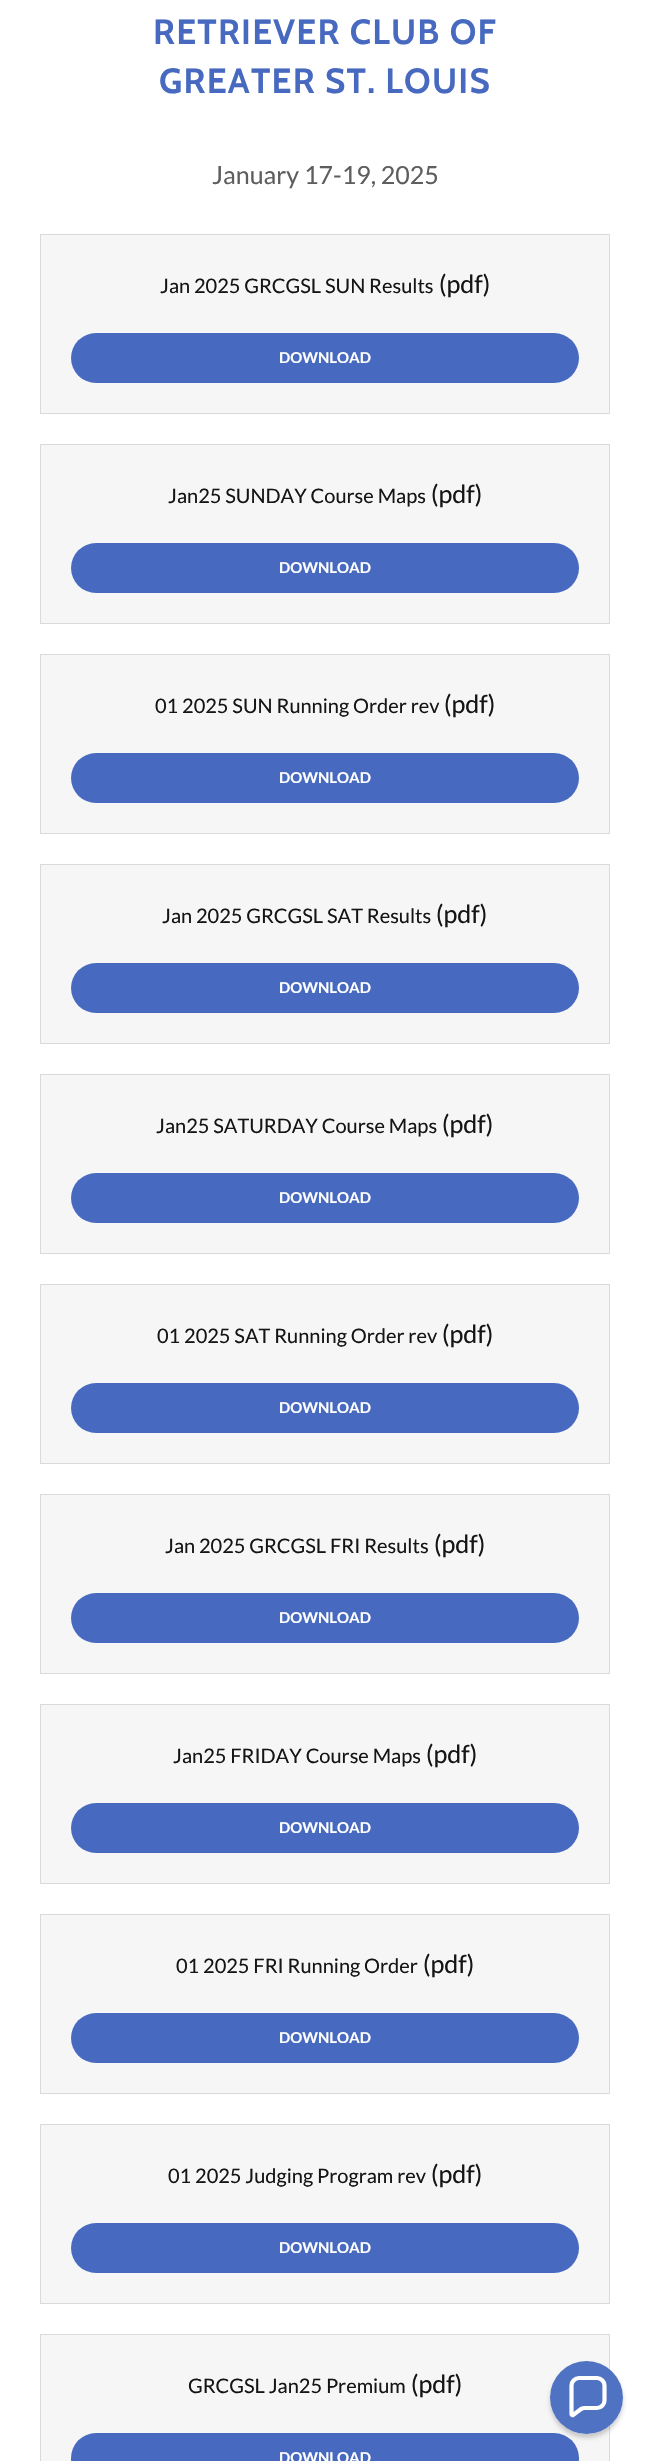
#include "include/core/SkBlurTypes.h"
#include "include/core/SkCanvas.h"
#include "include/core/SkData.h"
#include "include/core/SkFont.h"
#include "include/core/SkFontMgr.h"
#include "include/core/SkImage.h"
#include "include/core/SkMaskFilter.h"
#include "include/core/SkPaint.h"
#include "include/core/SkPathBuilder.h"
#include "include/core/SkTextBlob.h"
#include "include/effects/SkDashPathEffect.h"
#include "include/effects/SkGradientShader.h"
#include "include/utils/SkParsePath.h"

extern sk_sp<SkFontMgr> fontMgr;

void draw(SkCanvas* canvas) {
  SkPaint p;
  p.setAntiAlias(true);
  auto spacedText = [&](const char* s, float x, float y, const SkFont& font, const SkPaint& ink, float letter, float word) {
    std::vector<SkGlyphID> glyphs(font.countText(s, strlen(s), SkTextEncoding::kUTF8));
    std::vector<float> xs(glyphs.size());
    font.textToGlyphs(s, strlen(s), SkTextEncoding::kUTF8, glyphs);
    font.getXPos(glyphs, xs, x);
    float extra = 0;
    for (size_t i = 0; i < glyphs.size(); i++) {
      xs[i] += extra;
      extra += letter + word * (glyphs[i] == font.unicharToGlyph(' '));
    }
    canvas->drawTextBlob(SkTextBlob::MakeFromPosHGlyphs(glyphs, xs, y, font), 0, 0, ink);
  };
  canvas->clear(SK_ColorWHITE);
  p.setColor(SkColorSetRGB(246, 246, 246));
  canvas->drawRect(SkRect::MakeLTRB(40.5f, 234.5f, 609.5f, 413.5f), p);
  p.setStyle(SkPaint::kStroke_Style);
  p.setStrokeWidth(1);
  p.setColor(SkColorSetRGB(218, 218, 218));
  canvas->drawRect(SkRect::MakeLTRB(40.5f, 234.5f, 609.5f, 413.5f), p);
  p.setStyle(SkPaint::kFill_Style);
  p.setColor(SkColorSetRGB(71, 106, 192));
  canvas->drawRoundRect(SkRect::MakeLTRB(71, 333, 579, 383), 25, 25, p);
  p.setColor(SkColorSetRGB(246, 246, 246));
  canvas->drawRect(SkRect::MakeLTRB(40.5f, 444.5f, 609.5f, 623.5f), p);
  p.setStyle(SkPaint::kStroke_Style);
  p.setColor(SkColorSetRGB(218, 218, 218));
  canvas->drawRect(SkRect::MakeLTRB(40.5f, 444.5f, 609.5f, 623.5f), p);
  p.setStyle(SkPaint::kFill_Style);
  p.setColor(SkColorSetRGB(71, 106, 192));
  canvas->drawRoundRect(SkRect::MakeLTRB(71, 543, 579, 593), 25, 25, p);
  p.setColor(SkColorSetRGB(246, 246, 246));
  canvas->drawRect(SkRect::MakeLTRB(40.5f, 654.5f, 609.5f, 833.5f), p);
  p.setStyle(SkPaint::kStroke_Style);
  p.setColor(SkColorSetRGB(218, 218, 218));
  canvas->drawRect(SkRect::MakeLTRB(40.5f, 654.5f, 609.5f, 833.5f), p);
  p.setStyle(SkPaint::kFill_Style);
  p.setColor(SkColorSetRGB(71, 106, 192));
  canvas->drawRoundRect(SkRect::MakeLTRB(71, 753, 579, 803), 25, 25, p);
  p.setColor(SkColorSetRGB(246, 246, 246));
  canvas->drawRect(SkRect::MakeLTRB(40.5f, 864.5f, 609.5f, 1043.5f), p);
  p.setStyle(SkPaint::kStroke_Style);
  p.setColor(SkColorSetRGB(218, 218, 218));
  canvas->drawRect(SkRect::MakeLTRB(40.5f, 864.5f, 609.5f, 1043.5f), p);
  p.setStyle(SkPaint::kFill_Style);
  p.setColor(SkColorSetRGB(71, 106, 192));
  canvas->drawRoundRect(SkRect::MakeLTRB(71, 963, 579, 1013), 25, 25, p);
  p.setColor(SkColorSetRGB(246, 246, 246));
  canvas->drawRect(SkRect::MakeLTRB(40.5f, 1074.5f, 609.5f, 1253.5f), p);
  p.setStyle(SkPaint::kStroke_Style);
  p.setColor(SkColorSetRGB(218, 218, 218));
  canvas->drawRect(SkRect::MakeLTRB(40.5f, 1074.5f, 609.5f, 1253.5f), p);
  p.setStyle(SkPaint::kFill_Style);
  p.setColor(SkColorSetRGB(71, 106, 192));
  canvas->drawRoundRect(SkRect::MakeLTRB(71, 1173, 579, 1223), 25, 25, p);
  p.setColor(SkColorSetRGB(246, 246, 246));
  canvas->drawRect(SkRect::MakeLTRB(40.5f, 1284.5f, 609.5f, 1463.5f), p);
  p.setStyle(SkPaint::kStroke_Style);
  p.setColor(SkColorSetRGB(218, 218, 218));
  canvas->drawRect(SkRect::MakeLTRB(40.5f, 1284.5f, 609.5f, 1463.5f), p);
  p.setStyle(SkPaint::kFill_Style);
  p.setColor(SkColorSetRGB(71, 106, 192));
  canvas->drawRoundRect(SkRect::MakeLTRB(71, 1383, 579, 1433), 25, 25, p);
  p.setColor(SkColorSetRGB(246, 246, 246));
  canvas->drawRect(SkRect::MakeLTRB(40.5f, 1494.5f, 609.5f, 1673.5f), p);
  p.setStyle(SkPaint::kStroke_Style);
  p.setColor(SkColorSetRGB(218, 218, 218));
  canvas->drawRect(SkRect::MakeLTRB(40.5f, 1494.5f, 609.5f, 1673.5f), p);
  p.setStyle(SkPaint::kFill_Style);
  p.setColor(SkColorSetRGB(71, 106, 192));
  canvas->drawRoundRect(SkRect::MakeLTRB(71, 1593, 579, 1643), 25, 25, p);
  p.setColor(SkColorSetRGB(246, 246, 246));
  canvas->drawRect(SkRect::MakeLTRB(40.5f, 1704.5f, 609.5f, 1883.5f), p);
  p.setStyle(SkPaint::kStroke_Style);
  p.setColor(SkColorSetRGB(218, 218, 218));
  canvas->drawRect(SkRect::MakeLTRB(40.5f, 1704.5f, 609.5f, 1883.5f), p);
  p.setStyle(SkPaint::kFill_Style);
  p.setColor(SkColorSetRGB(71, 106, 192));
  canvas->drawRoundRect(SkRect::MakeLTRB(71, 1803, 579, 1853), 25, 25, p);
  p.setColor(SkColorSetRGB(246, 246, 246));
  canvas->drawRect(SkRect::MakeLTRB(40.5f, 1914.5f, 609.5f, 2093.5f), p);
  p.setStyle(SkPaint::kStroke_Style);
  p.setColor(SkColorSetRGB(218, 218, 218));
  canvas->drawRect(SkRect::MakeLTRB(40.5f, 1914.5f, 609.5f, 2093.5f), p);
  p.setStyle(SkPaint::kFill_Style);
  p.setColor(SkColorSetRGB(71, 106, 192));
  canvas->drawRoundRect(SkRect::MakeLTRB(71, 2013, 579, 2063), 25, 25, p);
  p.setColor(SkColorSetRGB(246, 246, 246));
  canvas->drawRect(SkRect::MakeLTRB(40.5f, 2124.5f, 609.5f, 2303.5f), p);
  p.setStyle(SkPaint::kStroke_Style);
  p.setColor(SkColorSetRGB(218, 218, 218));
  canvas->drawRect(SkRect::MakeLTRB(40.5f, 2124.5f, 609.5f, 2303.5f), p);
  p.setStyle(SkPaint::kFill_Style);
  p.setColor(SkColorSetRGB(71, 106, 192));
  canvas->drawRoundRect(SkRect::MakeLTRB(71, 2223, 579, 2273), 25, 25, p);
  p.setColor(SkColorSetRGB(246, 246, 246));
  canvas->drawRect(SkRect::MakeLTRB(40.5f, 2334.5f, 609.5f, 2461.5f), p);
  p.setStyle(SkPaint::kStroke_Style);
  p.setColor(SkColorSetRGB(218, 218, 218));
  canvas->drawRect(SkRect::MakeLTRB(40.5f, 2334.5f, 609.5f, 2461.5f), p);
  p.setStyle(SkPaint::kFill_Style);
  p.setColor(SkColorSetRGB(71, 106, 192));
  canvas->drawRoundRect(SkRect::MakeLTRB(71, 2433, 579, 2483), 25, 25, p);
  canvas->save();
  canvas->clipPath(SkPathBuilder(SkPathFillType::kEvenOdd).moveTo(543, 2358).lineTo(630, 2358).lineTo(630, 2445).lineTo(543, 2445).close().moveTo(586.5f, 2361).cubicTo(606.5f, 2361, 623, 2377.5f, 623, 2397.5f).cubicTo(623, 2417.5f, 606.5f, 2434, 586.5f, 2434).cubicTo(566.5f, 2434, 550, 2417.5f, 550, 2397.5f).cubicTo(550, 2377.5f, 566.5f, 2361, 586.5f, 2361).close().detach(), true);
  p.setColor(SkColorSetARGB(48, 0, 0, 0));
  p.setMaskFilter(SkMaskFilter::MakeBlur(kNormal_SkBlurStyle, 2));
  canvas->drawRoundRect(SkRect::MakeLTRB(550, 2365, 623, 2438), 36.5f, 36.5f, p);
  p.setMaskFilter(nullptr);
  canvas->restore();
  p.setColor(SkColorSetARGB(242, 71, 106, 192));
  canvas->drawCircle(586.5f, 2397.5f, 36.5f, p);
  p.setStyle(SkPaint::kStroke_Style);
  p.setStrokeWidth(4.2f);
  p.setColor(SK_ColorWHITE);
  canvas->drawPath(SkPathBuilder().moveTo(597, 2378).lineTo(579, 2378).cubicTo(575, 2378, 571.5f, 2381.5f, 571.5f, 2385.5f).lineTo(571.5f, 2414).cubicTo(571.5f, 2415, 572.5f, 2415.5f, 573, 2415).lineTo(581, 2409).cubicTo(582, 2408.5f, 583.5f, 2408, 584.5f, 2408).lineTo(597, 2408).cubicTo(601, 2408, 604.5f, 2404.5f, 604.5f, 2400.5f).lineTo(604.5f, 2385.5f).cubicTo(604.5f, 2381.5f, 601, 2378, 597, 2378).close().detach(), p);
  SkFont font1(fontMgr->matchFamilyStyle("Cabin", SkFontStyle::Bold()), 35);
  font1.setSubpixel(true);
  p.setStyle(SkPaint::kFill_Style);
  p.setColor(SkColorSetRGB(71, 106, 192));
  spacedText("RETRIEVER CLUB OF", 153, 44, font1, p, 1.25f, 0);
  spacedText("GREATER ST. LOUIS", 159, 93, font1, p, 1.25f, 0);
  SkFont font2(fontMgr->matchFamilyStyle("Lato", SkFontStyle::Normal()), 25);
  font2.setSubpixel(true);
  p.setColor(SkColorSetRGB(94, 94, 94));
  canvas->drawString("January 17-19, 2025", 212, 184, font2, p);
  SkFont font3(fontMgr->matchFamilyStyle("Lato", SkFontStyle::Normal()), 20);
  font3.setSubpixel(true);
  p.setColor(SkColorSetRGB(21, 21, 21));
  canvas->drawString("Jan 2025 GRCGSL SUN Results", 160, 293, font3, p);
  canvas->drawString("(pdf)", 439, 293, font2, p);
  SkFont font4(fontMgr->matchFamilyStyle("Lato", SkFontStyle::Bold()), 15);
  font4.setSubpixel(true);
  p.setColor(SK_ColorWHITE);
  canvas->drawString("DOWNLOAD", 279, 363, font4, p);
  p.setColor(SkColorSetRGB(21, 21, 21));
  canvas->drawString("Jan25 SUNDAY Course Maps", 168, 503, font3, p);
  canvas->drawString("(pdf)", 431, 503, font2, p);
  p.setColor(SK_ColorWHITE);
  canvas->drawString("DOWNLOAD", 279, 573, font4, p);
  p.setColor(SkColorSetRGB(21, 21, 21));
  canvas->drawString("01 2025 SUN Running Order rev", 155, 713, font3, p);
  canvas->drawString("(pdf)", 444, 713, font2, p);
  p.setColor(SK_ColorWHITE);
  canvas->drawString("DOWNLOAD", 279, 783, font4, p);
  p.setColor(SkColorSetRGB(21, 21, 21));
  canvas->drawString("Jan 2025 GRCGSL SAT Results", 162, 923, font3, p);
  canvas->drawString("(pdf)", 436, 923, font2, p);
  p.setColor(SK_ColorWHITE);
  canvas->drawString("DOWNLOAD", 279, 993, font4, p);
  p.setColor(SkColorSetRGB(21, 21, 21));
  canvas->drawString("Jan25 SATURDAY Course Maps", 156, 1133, font3, p);
  canvas->drawString("(pdf)", 442, 1133, font2, p);
  p.setColor(SK_ColorWHITE);
  canvas->drawString("DOWNLOAD", 279, 1203, font4, p);
  p.setColor(SkColorSetRGB(21, 21, 21));
  canvas->drawString("01 2025 SAT Running Order rev", 157, 1343, font3, p);
  canvas->drawString("(pdf)", 442, 1343, font2, p);
  p.setColor(SK_ColorWHITE);
  canvas->drawString("DOWNLOAD", 279, 1413, font4, p);
  p.setColor(SkColorSetRGB(21, 21, 21));
  canvas->drawString("Jan 2025 GRCGSL FRI Results", 165, 1553, font3, p);
  canvas->drawString("(pdf)", 434, 1553, font2, p);
  p.setColor(SK_ColorWHITE);
  canvas->drawString("DOWNLOAD", 279, 1623, font4, p);
  p.setColor(SkColorSetRGB(21, 21, 21));
  canvas->drawString("Jan25 FRIDAY Course Maps", 173, 1763, font3, p);
  canvas->drawString("(pdf)", 426, 1763, font2, p);
  p.setColor(SK_ColorWHITE);
  canvas->drawString("DOWNLOAD", 279, 1833, font4, p);
  p.setColor(SkColorSetRGB(21, 21, 21));
  canvas->drawString("01 2025 FRI Running Order", 176, 1973, font3, p);
  canvas->drawString("(pdf)", 423, 1973, font2, p);
  p.setColor(SK_ColorWHITE);
  canvas->drawString("DOWNLOAD", 279, 2043, font4, p);
  p.setColor(SkColorSetRGB(21, 21, 21));
  canvas->drawString("01 2025 Judging Program rev", 168, 2183, font3, p);
  canvas->drawString("(pdf)", 431, 2183, font2, p);
  p.setColor(SK_ColorWHITE);
  canvas->drawString("DOWNLOAD", 279, 2253, font4, p);
  p.setColor(SkColorSetRGB(21, 21, 21));
  canvas->drawString("GRCGSL Jan25 Premium", 188, 2393, font3, p);
  canvas->drawString("(pdf)", 411, 2393, font2, p);
  p.setColor(SK_ColorWHITE);
  canvas->drawString("DOWNLOAD", 279, 2463, font4, p);
}
